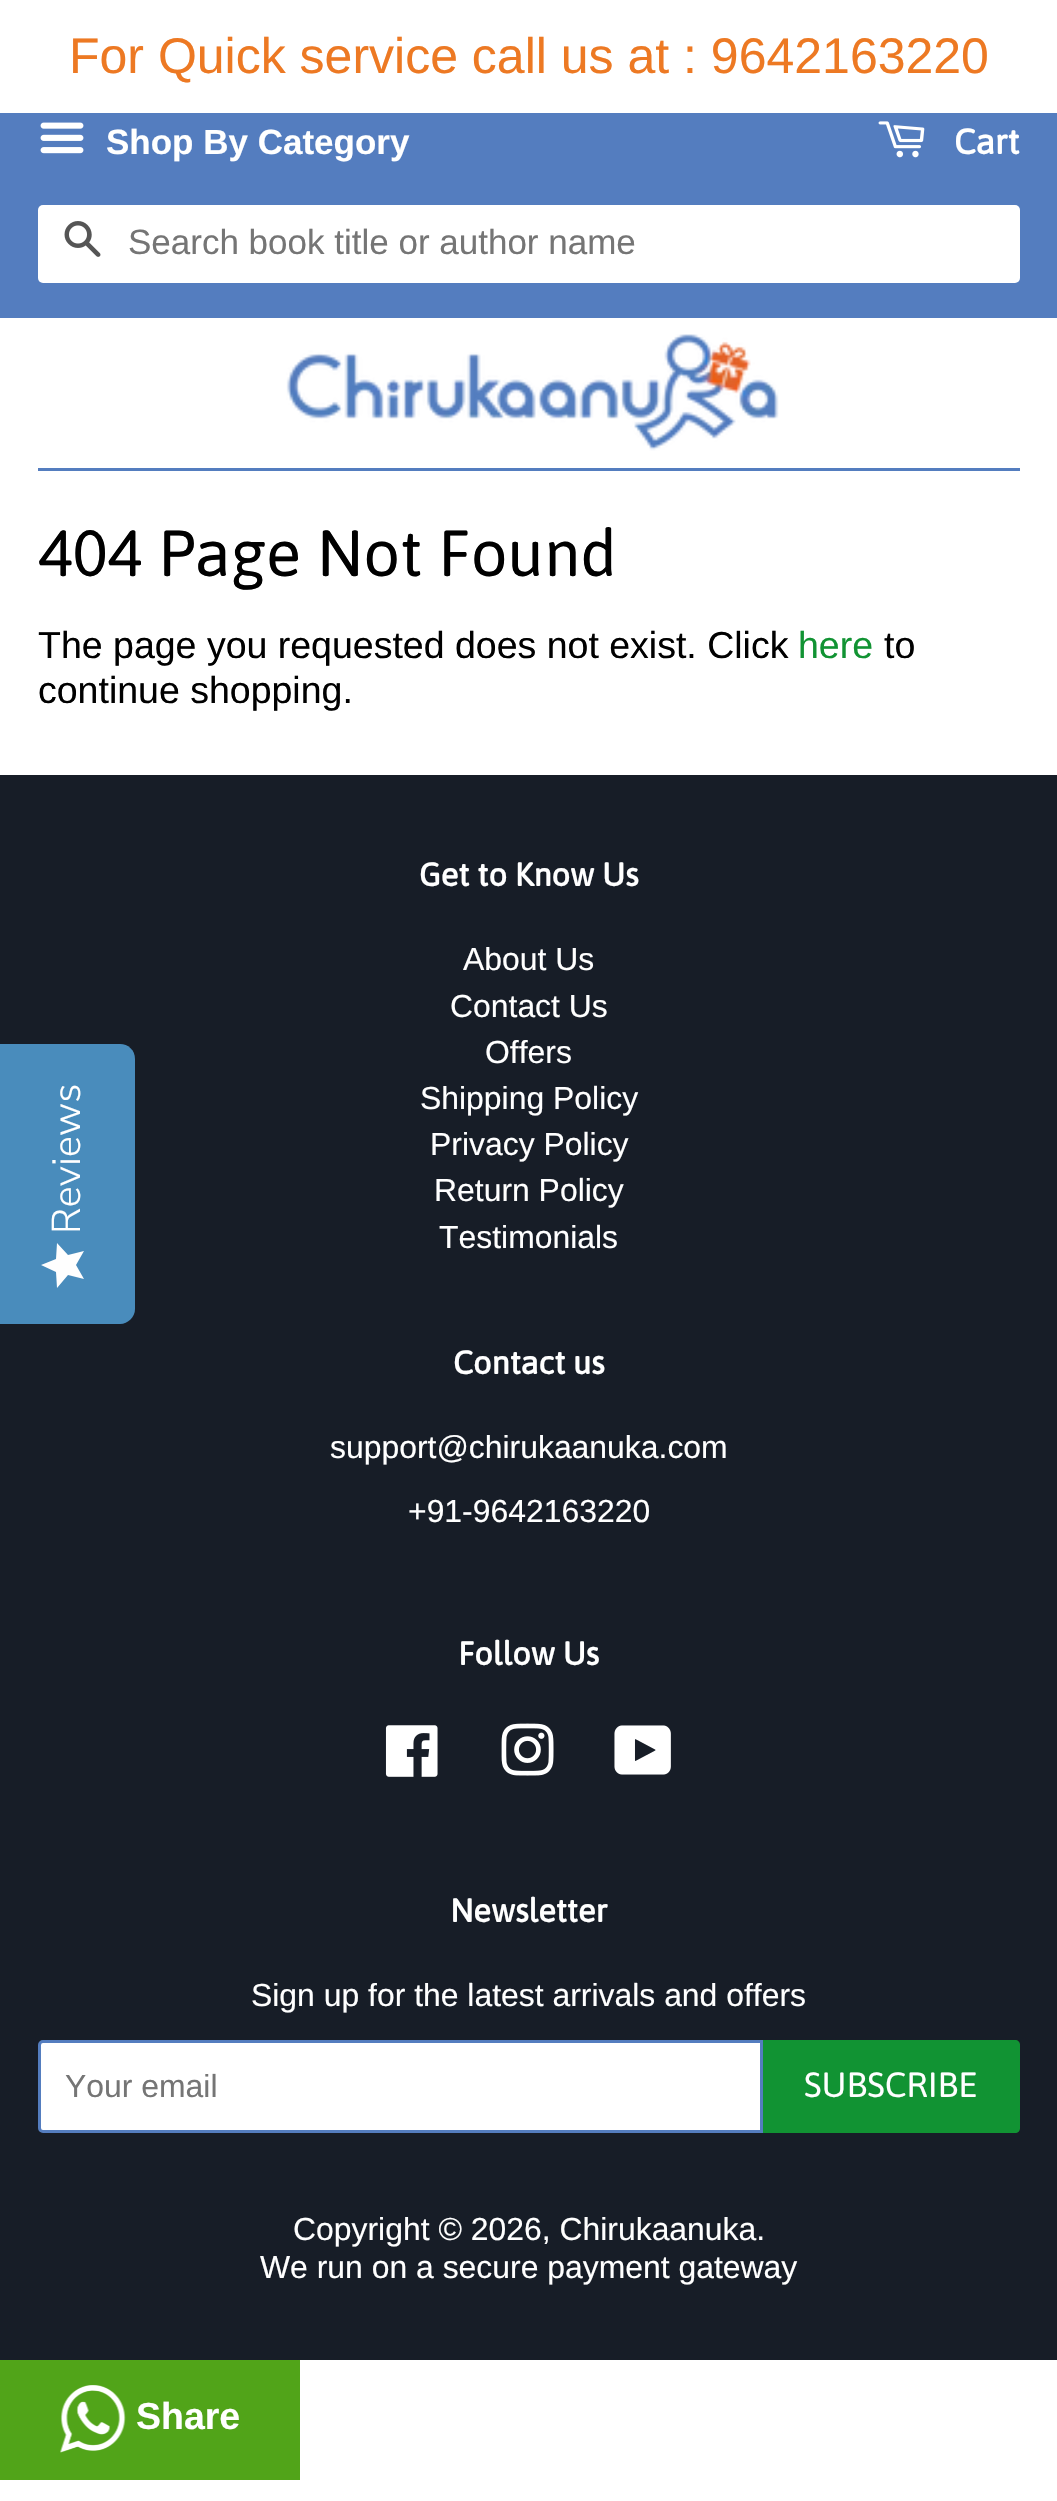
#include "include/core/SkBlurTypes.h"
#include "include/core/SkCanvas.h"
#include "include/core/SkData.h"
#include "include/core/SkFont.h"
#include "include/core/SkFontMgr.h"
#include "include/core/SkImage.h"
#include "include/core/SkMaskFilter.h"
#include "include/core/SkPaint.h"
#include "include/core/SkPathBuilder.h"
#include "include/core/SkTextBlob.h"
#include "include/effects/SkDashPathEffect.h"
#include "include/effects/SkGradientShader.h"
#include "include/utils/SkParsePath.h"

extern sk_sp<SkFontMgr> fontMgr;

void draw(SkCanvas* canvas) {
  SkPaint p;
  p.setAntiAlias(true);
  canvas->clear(SK_ColorWHITE);
  p.setColor(SkColorSetRGB(84, 125, 191));
  canvas->drawRect(SkRect::MakeLTRB(0, 113, 1057, 318), p);
  canvas->drawImageRect(SkImages::DeferredFromEncodedData(SkData::MakeFromFileName("images/1.png")), SkRect::MakeLTRB(40, 122, 84, 154), SkSamplingOptions());
  canvas->drawImageRect(SkImages::DeferredFromEncodedData(SkData::MakeFromFileName("images/2.png")), SkRect::MakeLTRB(878, 121, 925, 158), SkSamplingOptions());
  p.setColor(SK_ColorWHITE);
  canvas->drawRoundRect(SkRect::MakeLTRB(38, 205, 1020, 283), 5, 5, p);
  canvas->drawImageRect(SkImages::DeferredFromEncodedData(SkData::MakeFromFileName("images/3.png")), SkRect::MakeLTRB(64, 221, 101, 257), SkSamplingOptions());
  p.setColor(SkColorSetRGB(84, 125, 191));
  canvas->drawRect(SkRect::MakeLTRB(38, 468, 1020, 471), p);
  canvas->drawImageRect(SkImages::DeferredFromEncodedData(SkData::MakeFromFileName("images/4.png")), SkRect::MakeLTRB(286, 334, 779, 451), SkSamplingOptions());
  p.setColor(SkColorSetRGB(23, 29, 39));
  canvas->drawRect(SkRect::MakeLTRB(0, 775, 1057, 2360), p);
  canvas->drawImageRect(SkImages::DeferredFromEncodedData(SkData::MakeFromFileName("images/5.png")), SkRect::MakeLTRB(385, 1725, 438, 1777), SkSamplingOptions());
  canvas->drawImageRect(SkImages::DeferredFromEncodedData(SkData::MakeFromFileName("images/6.png")), SkRect::MakeLTRB(501, 1723, 554, 1776), SkSamplingOptions());
  canvas->drawImageRect(SkImages::DeferredFromEncodedData(SkData::MakeFromFileName("images/7.png")), SkRect::MakeLTRB(614, 1725, 671, 1775), SkSamplingOptions());
  p.setColor(SK_ColorWHITE);
  canvas->drawPath(SkPathBuilder().moveTo(43, 2041.5f).lineTo(761.5f, 2041.5f).lineTo(761.5f, 2131.5f).lineTo(43, 2131.5f).cubicTo(41, 2131.5f, 39.5f, 2130, 39.5f, 2128).lineTo(39.5f, 2045).cubicTo(39.5f, 2043, 41, 2041.5f, 43, 2041.5f).close().detach(), p);
  p.setStyle(SkPaint::kStroke_Style);
  p.setStrokeWidth(3);
  p.setColor(SkColorSetRGB(84, 125, 191));
  canvas->drawPath(SkPathBuilder().moveTo(43, 2041.5f).lineTo(761.5f, 2041.5f).lineTo(761.5f, 2131.5f).lineTo(43, 2131.5f).cubicTo(41, 2131.5f, 39.5f, 2130, 39.5f, 2128).lineTo(39.5f, 2045).cubicTo(39.5f, 2043, 41, 2041.5f, 43, 2041.5f).close().detach(), p);
  p.setStyle(SkPaint::kFill_Style);
  p.setColor(SkColorSetRGB(17, 147, 51));
  canvas->drawPath(SkPathBuilder().moveTo(763, 2040).lineTo(1015, 2040).cubicTo(1018, 2040, 1020, 2042, 1020, 2045).lineTo(1020, 2128).cubicTo(1020, 2131, 1018, 2133, 1015, 2133).lineTo(763, 2133).close().detach(), p);
  p.setColor(SkColorSetRGB(73, 140, 188));
  canvas->drawPath(SkPathBuilder().moveTo(0, 1324).lineTo(0, 1044).lineTo(120, 1044).cubicTo(128, 1044, 135, 1050, 135, 1059).lineTo(135, 1309).cubicTo(135, 1317, 128, 1324, 120, 1324).close().detach(), p);
  {
    const SkColor colors[] = {SkColorSetRGB(254, 254, 254), SkColorSetRGB(234, 234, 234)};
    const float stops[] = {1, 1};
    const SkPoint ends[] = {{41, 1288}, {41, 1243}};
    p.setShader(SkGradientShader::MakeLinear(ends, colors, stops, 2, SkTileMode::kClamp));
    p.setAlpha(255);
  }
  canvas->drawPath(SkPathBuilder().moveTo(76, 1265).lineTo(84, 1251).lineTo(68, 1255).lineTo(57, 1243).lineTo(56, 1259).lineTo(41, 1265).lineTo(56, 1272).lineTo(57, 1288).lineTo(68, 1275).lineTo(84, 1279).close().detach(), p);
  p.setShader(nullptr);
  p.setColor(SkColorSetRGB(81, 164, 25));
  canvas->drawRect(SkRect::MakeLTRB(0, 2360, 300, 2480), p);
  canvas->drawImageRect(SkImages::DeferredFromEncodedData(SkData::MakeFromFileName("images/8.png")), SkRect::MakeLTRB(60, 2385, 126, 2453), SkSamplingOptions());
  SkFont font1(fontMgr->matchFamilyStyle("Liberation Sans", SkFontStyle::Normal()), 50);
  font1.setSubpixel(true);
  p.setColor(SkColorSetRGB(237, 121, 35));
  canvas->drawString("For Quick service call us at : 9642163220", 69, 73, font1, p);
  SkFont font2(fontMgr->matchFamilyStyle("Liberation Sans", SkFontStyle::Bold()), 35);
  font2.setSubpixel(true);
  p.setColor(SK_ColorWHITE);
  canvas->drawString("Shop By Category", 106, 154, font2, p);
  SkFont font3(fontMgr->matchFamilyStyle("Asap", SkFontStyle::Bold()), 35);
  font3.setSubpixel(true);
  canvas->drawString("Cart", 954, 154, font3, p);
  SkFont font4(fontMgr->matchFamilyStyle("Liberation Sans", SkFontStyle::Normal()), 35);
  font4.setSubpixel(true);
  p.setColor(SkColorSetRGB(117, 117, 117));
  canvas->drawString("Search book title or author name", 128, 254, font4, p);
  SkFont font5(fontMgr->matchFamilyStyle("Asap", SkFontStyle::Normal()), 65);
  font5.setSubpixel(true);
  p.setColor(SK_ColorBLACK);
  canvas->drawString("404 Page Not Found", 38, 576, font5, p);
  SkFont font6(fontMgr->matchFamilyStyle("Liberation Sans", SkFontStyle::Normal()), 37.5f);
  font6.setSubpixel(true);
  canvas->drawString("The page you requested does not exist. Click", 38, 658, font6, p);
  p.setColor(SkColorSetRGB(17, 147, 51));
  canvas->drawString("here", 798, 658, font6, p);
  p.setColor(SK_ColorBLACK);
  canvas->drawString("to", 884, 658, font6, p);
  canvas->drawString("continue shopping.", 38, 703, font6, p);
  SkFont font7(fontMgr->matchFamilyStyle("Asap", SkFontStyle::Bold()), 32.5f);
  font7.setSubpixel(true);
  p.setColor(SK_ColorWHITE);
  canvas->drawString("Get to Know Us", 419, 886, font7, p);
  SkFont font8(fontMgr->matchFamilyStyle("Liberation Sans", SkFontStyle::Normal()), 31.9f);
  font8.setSubpixel(true);
  canvas->drawString("About Us", 463, 970, font8, p);
  canvas->drawString("Contact Us", 450, 1017, font8, p);
  canvas->drawString("Offers", 485, 1063, font8, p);
  canvas->drawString("Shipping Policy", 420, 1109, font8, p);
  canvas->drawString("Privacy Policy", 430, 1155, font8, p);
  canvas->drawString("Return Policy", 434, 1201, font8, p);
  canvas->drawString("Testimonials", 439, 1248, font8, p);
  canvas->drawString("Contact us", 453, 1374, font7, p);
  canvas->drawString("support@chirukaanuka.com", 330, 1458, font8, p);
  canvas->drawString("+91-9642163220", 408, 1522, font8, p);
  canvas->drawString("Follow Us", 458, 1665, font7, p);
  canvas->drawString("Newsletter", 450, 1922, font7, p);
  canvas->drawString("Sign up for the latest arrivals and offers", 251, 2006, font8, p);
  p.setColor(SkColorSetRGB(117, 117, 117));
  canvas->drawString("Your email", 65, 2097, font8, p);
  SkFont font9(fontMgr->matchFamilyStyle("Asap", SkFontStyle::Normal()), 35);
  font9.setSubpixel(true);
  p.setColor(SK_ColorWHITE);
  canvas->drawString("SUBSCRIBE", 804, 2097, font9, p);
  canvas->drawString("Copyright © 2026, Chirukaanuka.", 293, 2240, font8, p);
  canvas->drawString("We run on a secure payment gateway", 260, 2278, font8, p);
  SkFont font10(fontMgr->matchFamilyStyle("Nunito Sans", SkFontStyle(300, SkFontStyle::kNormal_Width, SkFontStyle::kUpright_Slant)), 40);
  font10.setSubpixel(true);
  canvas->save();
  canvas->rotate(-90, 80, 1234);
  canvas->drawString("Reviews", 80, 1234, font10, p);
  canvas->restore();
  SkFont font11(fontMgr->matchFamilyStyle("Liberation Sans", SkFontStyle::Bold()), 37.5f);
  font11.setSubpixel(true);
  canvas->drawString("Share", 136, 2429, font11, p);
}
